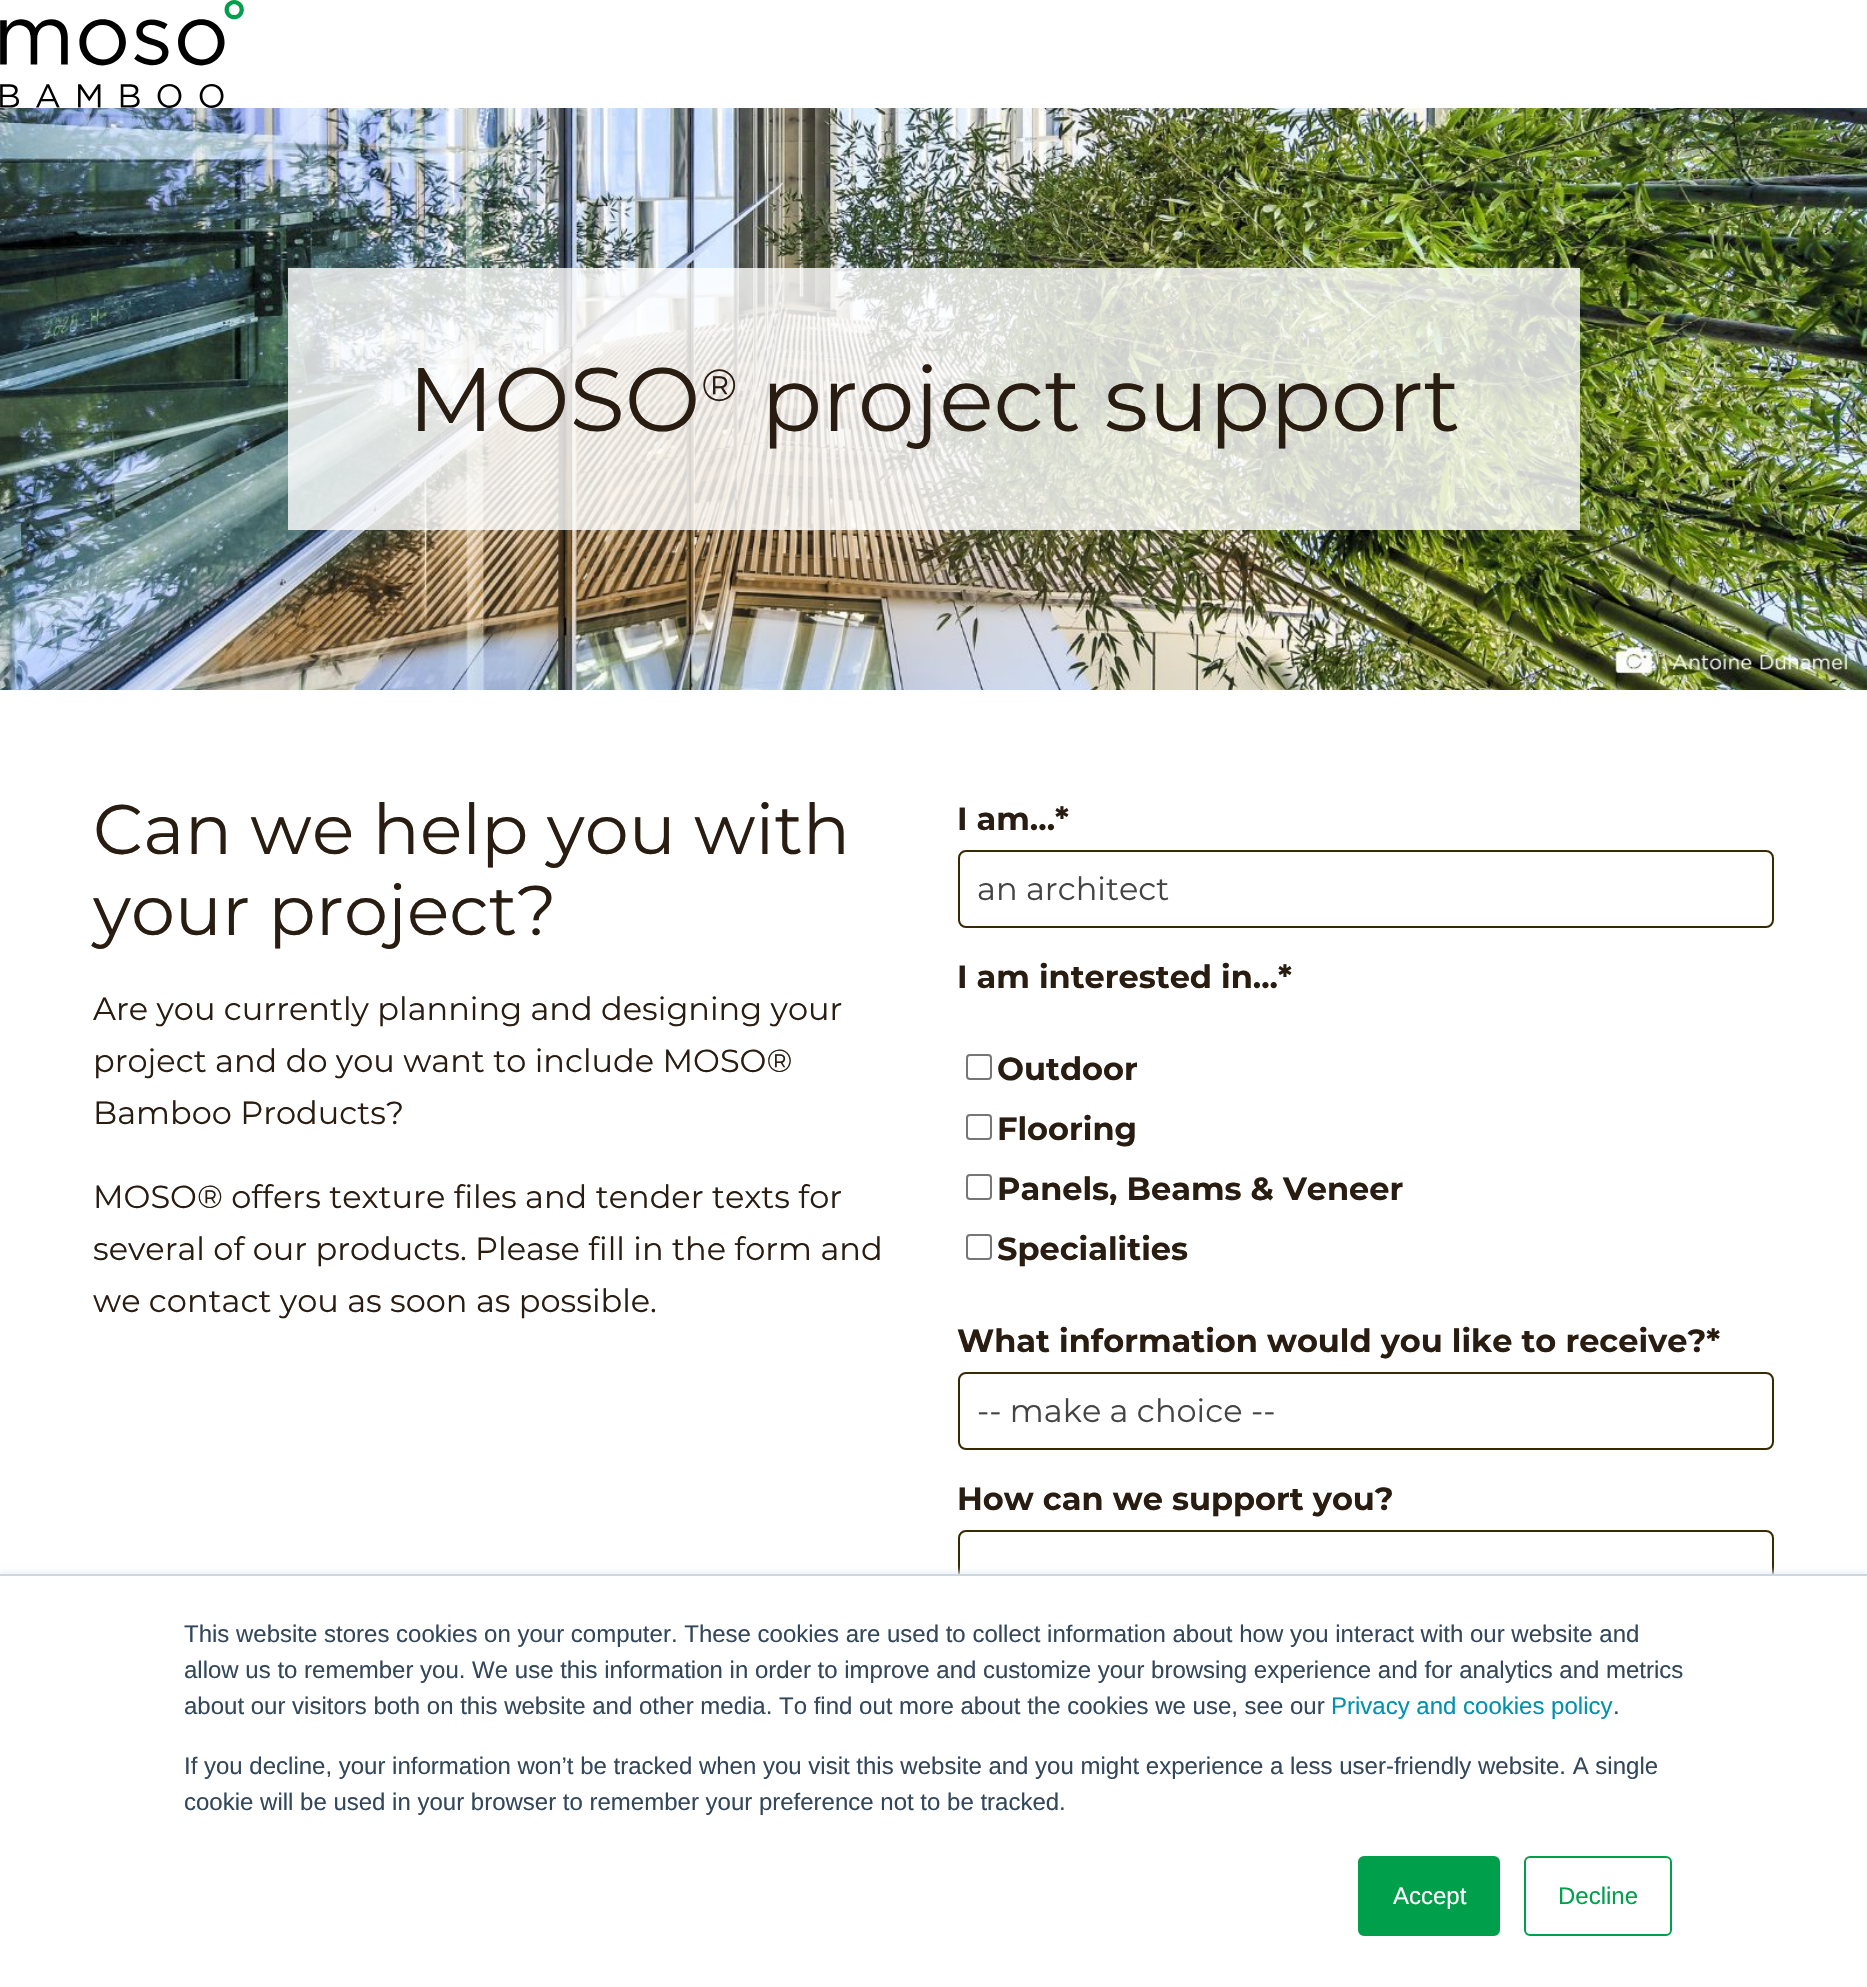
#include "include/core/SkBlurTypes.h"
#include "include/core/SkCanvas.h"
#include "include/core/SkData.h"
#include "include/core/SkFont.h"
#include "include/core/SkFontMgr.h"
#include "include/core/SkImage.h"
#include "include/core/SkMaskFilter.h"
#include "include/core/SkPaint.h"
#include "include/core/SkPathBuilder.h"
#include "include/core/SkTextBlob.h"
#include "include/effects/SkDashPathEffect.h"
#include "include/effects/SkGradientShader.h"
#include "include/utils/SkParsePath.h"

extern sk_sp<SkFontMgr> fontMgr;

void draw(SkCanvas* canvas) {
  SkPaint p;
  p.setAntiAlias(true);
  canvas->clear(SK_ColorWHITE);
  canvas->drawImageRect(SkImages::DeferredFromEncodedData(SkData::MakeFromFileName("images/1.png")), SkRect::MakeLTRB(0, 0, 244, 108), SkSamplingOptions());
  canvas->drawImageRect(SkImages::DeferredFromEncodedData(SkData::MakeFromFileName("images/2.png")), SkRect::MakeLTRB(0, 108, 1867, 690), SkSamplingOptions());
  p.setColor(SkColorSetARGB(204, 255, 255, 255));
  canvas->drawRect(SkRect::MakeLTRB(288, 268, 1580, 530), p);
  p.setStyle(SkPaint::kStroke_Style);
  p.setStrokeWidth(2);
  p.setColor(SkColorSetRGB(55, 41, 0));
  canvas->drawRoundRect(SkRect::MakeLTRB(959, 851, 1773, 927), 7, 7, p);
  p.setColor(SkColorSetRGB(118, 118, 118));
  canvas->drawRoundRect(SkRect::MakeLTRB(967, 1055, 991, 1079), 3, 3, p);
  canvas->drawRoundRect(SkRect::MakeLTRB(967, 1115, 991, 1139), 3, 3, p);
  canvas->drawRoundRect(SkRect::MakeLTRB(967, 1175, 991, 1199), 3, 3, p);
  canvas->drawRoundRect(SkRect::MakeLTRB(967, 1235, 991, 1259), 3, 3, p);
  p.setColor(SkColorSetRGB(55, 41, 0));
  canvas->drawRoundRect(SkRect::MakeLTRB(959, 1373, 1773, 1449), 7, 7, p);
  canvas->drawRoundRect(SkRect::MakeLTRB(959, 1531, 1773, 1645), 7, 7, p);
  p.setStyle(SkPaint::kFill_Style);
  p.setColor(SkColorSetRGB(234, 240, 246));
  p.setMaskFilter(SkMaskFilter::MakeBlur(kNormal_SkBlurStyle, 3));
  canvas->drawRect(SkRect::MakeLTRB(0, 1572, 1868, 1986), p);
  p.setMaskFilter(nullptr);
  p.setColor(SK_ColorWHITE);
  canvas->drawRect(SkRect::MakeLTRB(0, 1576, 1867, 1987), p);
  p.setColor(SkColorSetRGB(203, 214, 226));
  canvas->drawRect(SkRect::MakeLTRB(0, 1574, 1867, 1576), p);
  p.setColor(SkColorSetRGB(0, 159, 75));
  canvas->drawRoundRect(SkRect::MakeLTRB(1359, 1857, 1499, 1935), 5, 5, p);
  p.setStyle(SkPaint::kStroke_Style);
  canvas->drawRoundRect(SkRect::MakeLTRB(1359, 1857, 1499, 1935), 5, 5, p);
  canvas->drawRoundRect(SkRect::MakeLTRB(1525, 1857, 1671, 1935), 5, 5, p);
  SkFont font1(fontMgr->matchFamilyStyle("Montserrat", SkFontStyle::Normal()), 90);
  font1.setSubpixel(true);
  p.setStyle(SkPaint::kFill_Style);
  p.setColor(SkColorSetRGB(41, 28, 17));
  canvas->drawString("MOSO", 408, 431, font1, p);
  SkFont font2(fontMgr->matchFamilyStyle("Montserrat", SkFontStyle::Normal()), 45);
  font2.setSubpixel(true);
  canvas->drawString("®", 701, 401, font2, p);
  canvas->drawString("project support", 761, 431, font1, p);
  SkFont font3(fontMgr->matchFamilyStyle("Montserrat", SkFontStyle::Normal()), 70);
  font3.setSubpixel(true);
  canvas->drawString("Can we help you with", 93, 854, font3, p);
  canvas->drawString("your project?", 93, 935, font3, p);
  SkFont font4(fontMgr->matchFamilyStyle("Montserrat", SkFontStyle::Normal()), 32);
  font4.setSubpixel(true);
  canvas->drawString("Are you currently planning and designing your", 93, 1020, font4, p);
  canvas->drawString("project and do you want to include MOSO®", 93, 1072, font4, p);
  canvas->drawString("Bamboo Products?", 93, 1124, font4, p);
  canvas->drawString("MOSO® offers texture files and tender texts for", 93, 1208, font4, p);
  canvas->drawString("several of our products. Please fill in the form and", 93, 1260, font4, p);
  canvas->drawString("we contact you as soon as possible.", 93, 1312, font4, p);
  SkFont font5(fontMgr->matchFamilyStyle("Montserrat", SkFontStyle::Bold()), 32);
  font5.setSubpixel(true);
  canvas->drawString("I am...*", 957, 830, font5, p);
  p.setColor(SkColorSetRGB(68, 68, 68));
  canvas->drawString("an architect", 977, 900, font4, p);
  p.setColor(SkColorSetRGB(41, 28, 17));
  canvas->drawString("I am interested in...*", 957, 988, font5, p);
  canvas->drawString("Outdoor", 997, 1080, font5, p);
  canvas->drawString("Flooring", 997, 1140, font5, p);
  canvas->drawString("Panels, Beams & Veneer", 997, 1200, font5, p);
  canvas->drawString("Specialities", 997, 1260, font5, p);
  canvas->drawString("What information would you like to receive?*", 957, 1352, font5, p);
  p.setColor(SkColorSetRGB(68, 68, 68));
  canvas->drawString("-- make a choice --", 977, 1422, font4, p);
  p.setColor(SkColorSetRGB(41, 28, 17));
  canvas->drawString("How can we support you?", 957, 1510, font5, p);
  SkFont font6(fontMgr->matchFamilyStyle("Liberation Sans", SkFontStyle::Normal()), 24);
  font6.setSubpixel(true);
  p.setColor(SkColorSetRGB(51, 71, 91));
  canvas->drawString("This website stores cookies on your computer. These cookies are used to collect information about how you interact with our website and", 184, 1642, font6, p);
  canvas->drawString("allow us to remember you. We use this information in order to improve and customize your browsing experience and for analytics and metrics", 184, 1678, font6, p);
  canvas->drawString("about our visitors both on this website and other media. To find out more about the cookies we use, see our", 184, 1714, font6, p);
  p.setColor(SkColorSetRGB(0, 145, 174));
  canvas->drawString("Privacy and cookies policy", 1331, 1714, font6, p);
  p.setColor(SkColorSetRGB(51, 71, 91));
  canvas->drawString(".", 1613, 1714, font6, p);
  canvas->drawString("If you decline, your information won’t be tracked when you visit this website and you might experience a less user-friendly website. A single", 184, 1774, font6, p);
  canvas->drawString("cookie will be used in your browser to remember your preference not to be tracked.", 184, 1810, font6, p);
  p.setColor(SK_ColorWHITE);
  canvas->drawString("Accept", 1393, 1904, font6, p);
  p.setColor(SkColorSetRGB(0, 159, 75));
  canvas->drawString("Decline", 1558, 1904, font6, p);
}
